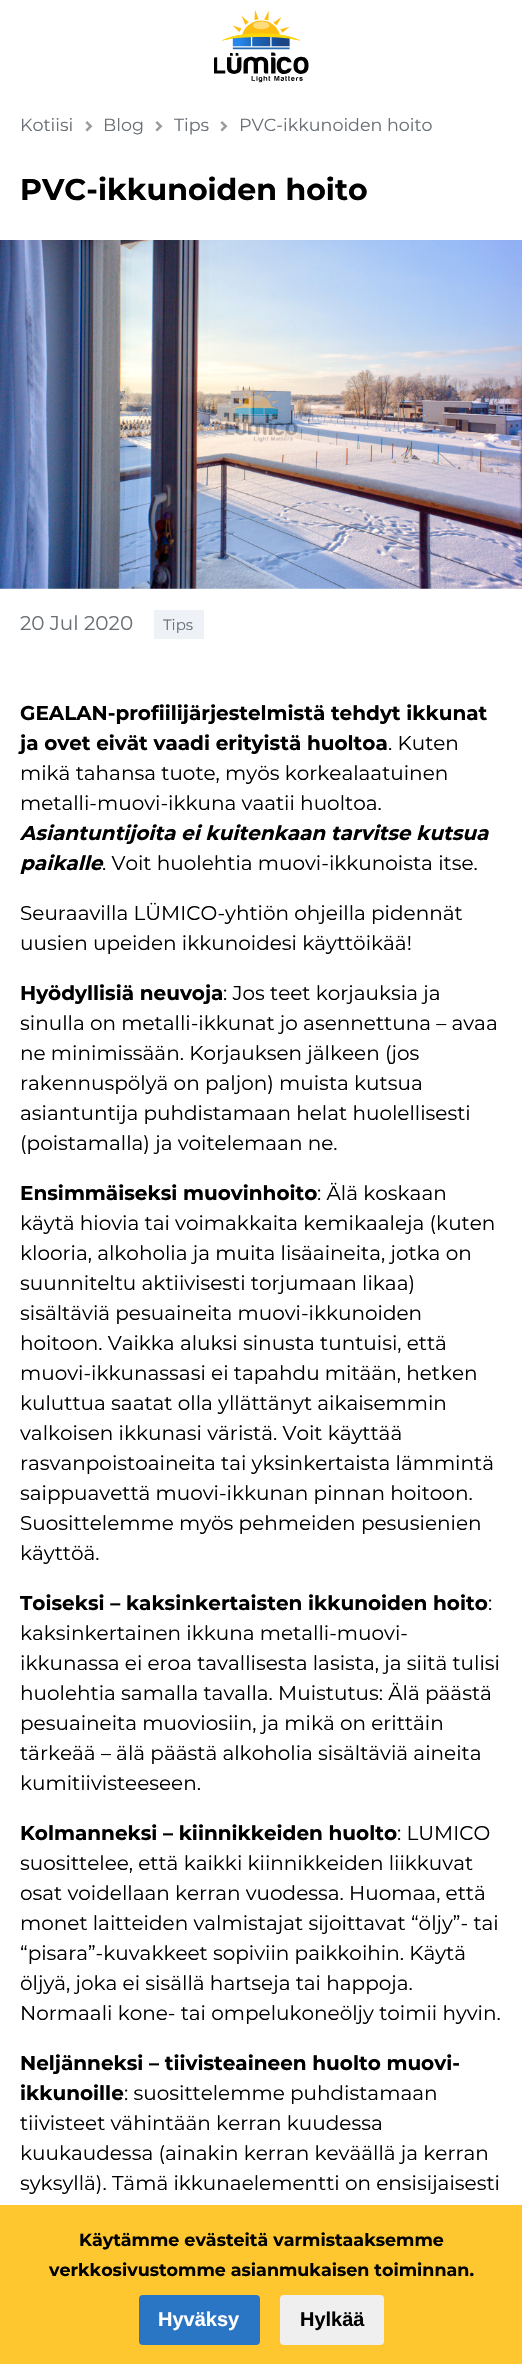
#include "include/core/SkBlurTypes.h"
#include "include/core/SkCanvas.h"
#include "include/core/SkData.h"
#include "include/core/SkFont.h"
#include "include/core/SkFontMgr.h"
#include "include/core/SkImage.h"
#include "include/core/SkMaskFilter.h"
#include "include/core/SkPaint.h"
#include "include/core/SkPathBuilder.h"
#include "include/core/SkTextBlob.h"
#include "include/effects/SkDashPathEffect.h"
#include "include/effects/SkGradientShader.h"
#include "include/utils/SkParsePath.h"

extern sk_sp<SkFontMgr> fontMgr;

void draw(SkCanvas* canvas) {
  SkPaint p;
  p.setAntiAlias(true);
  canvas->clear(SK_ColorWHITE);
  canvas->drawImageRect(SkImages::DeferredFromEncodedData(SkData::MakeFromFileName("images/1.png")), SkRect::MakeLTRB(214, 10, 309, 83), SkSamplingOptions());
  canvas->drawImageRect(SkImages::DeferredFromEncodedData(SkData::MakeFromFileName("images/2.png")), SkRect::MakeLTRB(85, 121, 93, 132), SkSamplingOptions());
  canvas->drawImageRect(SkImages::DeferredFromEncodedData(SkData::MakeFromFileName("images/2.png")), SkRect::MakeLTRB(155, 121, 163, 132), SkSamplingOptions());
  canvas->drawImageRect(SkImages::DeferredFromEncodedData(SkData::MakeFromFileName("images/2.png")), SkRect::MakeLTRB(220, 121, 228, 132), SkSamplingOptions());
  canvas->drawImageRect(SkImages::DeferredFromEncodedData(SkData::MakeFromFileName("images/3.png")), SkRect::MakeLTRB(0, 240, 522, 589), SkSamplingOptions());
  p.setColor(SkColorSetRGB(238, 241, 245));
  canvas->drawRect(SkRect::MakeLTRB(154, 610, 204, 639), p);
  p.setColor(SkColorSetRGB(254, 199, 48));
  canvas->drawRect(SkRect::MakeLTRB(0, 2205, 522, 2364), p);
  p.setColor(SkColorSetRGB(42, 118, 196));
  canvas->drawRoundRect(SkRect::MakeLTRB(139, 2295, 260, 2345), 4, 4, p);
  p.setColor(SkColorSetRGB(239, 239, 239));
  canvas->drawRoundRect(SkRect::MakeLTRB(280, 2295, 384, 2345), 4, 4, p);
  SkFont font1(fontMgr->matchFamilyStyle("Montserrat", SkFontStyle::Normal()), 17.5f);
  font1.setSubpixel(true);
  p.setColor(SkColorSetRGB(106, 112, 117));
  canvas->drawString("Kotiisi", 20, 131, font1, p);
  canvas->drawString("Blog", 103, 131, font1, p);
  canvas->drawString("Tips", 174, 131, font1, p);
  canvas->drawString("PVC-ikkunoiden hoito", 239, 131, font1, p);
  SkFont font2(fontMgr->matchFamilyStyle("Montserrat", SkFontStyle::Bold()), 30);
  font2.setSubpixel(true);
  p.setColor(SK_ColorBLACK);
  canvas->drawString("PVC-ikkunoiden hoito", 20, 200, font2, p);
  SkFont font3(fontMgr->matchFamilyStyle("Montserrat", SkFontStyle::Normal()), 20);
  font3.setSubpixel(true);
  p.setColor(SkColorSetRGB(106, 112, 117));
  canvas->drawString("20 Jul 2020", 20, 630, font3, p);
  SkFont font4(fontMgr->matchFamilyStyle("Montserrat", SkFontStyle::Normal()), 15);
  font4.setSubpixel(true);
  canvas->drawString("Tips", 163, 630, font4, p);
  SkFont font5(fontMgr->matchFamilyStyle("Montserrat", SkFontStyle::Bold()), 20);
  font5.setSubpixel(true);
  p.setColor(SK_ColorBLACK);
  canvas->drawString("GEALAN-profiilijärjestelmistä tehdyt ikkunat", 20, 720, font5, p);
  canvas->drawString("ja ovet eivät vaadi erityistä huoltoa", 20, 750, font5, p);
  canvas->drawString(". Kuten", 388, 750, font3, p);
  canvas->drawString("mikä tahansa tuote, myös korkealaatuinen", 20, 780, font3, p);
  canvas->drawString("metalli-muovi-ikkuna vaatii huoltoa.", 20, 810, font3, p);
  SkFont font6(fontMgr->matchFamilyStyle("Montserrat", SkFontStyle::BoldItalic()), 20);
  font6.setSubpixel(true);
  canvas->drawString("Asiantuntijoita ei kuitenkaan tarvitse kutsua", 20, 840, font6, p);
  canvas->drawString("paikalle", 20, 870, font6, p);
  canvas->drawString(". Voit huolehtia muovi-ikkunoista itse.", 102, 870, font3, p);
  canvas->drawString("Seuraavilla LÜMICO-yhtiön ohjeilla pidennät", 20, 920, font3, p);
  canvas->drawString("uusien upeiden ikkunoidesi käyttöikää!", 20, 950, font3, p);
  canvas->drawString("Hyödyllisiä neuvoja", 20, 1000, font5, p);
  canvas->drawString(": Jos teet korjauksia ja", 223, 1000, font3, p);
  canvas->drawString("sinulla on metalli-ikkunat jo asennettuna – avaa", 20, 1030, font3, p);
  canvas->drawString("ne minimissään. Korjauksen jälkeen (jos", 20, 1060, font3, p);
  canvas->drawString("rakennuspölyä on paljon) muista kutsua", 20, 1090, font3, p);
  canvas->drawString("asiantuntija puhdistamaan helat huolellisesti", 20, 1120, font3, p);
  canvas->drawString("(poistamalla) ja voitelemaan ne.", 20, 1150, font3, p);
  canvas->drawString("Ensimmäiseksi muovinhoito", 20, 1200, font5, p);
  canvas->drawString(": Älä koskaan", 317, 1200, font3, p);
  canvas->drawString("käytä hiovia tai voimakkaita kemikaaleja (kuten", 20, 1230, font3, p);
  canvas->drawString("klooria, alkoholia ja muita lisäaineita, jotka on", 20, 1260, font3, p);
  canvas->drawString("suunniteltu aktiivisesti torjumaan likaa)", 20, 1290, font3, p);
  canvas->drawString("sisältäviä pesuaineita muovi-ikkunoiden", 20, 1320, font3, p);
  canvas->drawString("hoitoon. Vaikka aluksi sinusta tuntuisi, että", 20, 1350, font3, p);
  canvas->drawString("muovi-ikkunassasi ei tapahdu mitään, hetken", 20, 1380, font3, p);
  canvas->drawString("kuluttua saatat olla yllättänyt aikaisemmin", 20, 1410, font3, p);
  canvas->drawString("valkoisen ikkunasi väristä. Voit käyttää", 20, 1440, font3, p);
  canvas->drawString("rasvanpoistoaineita tai yksinkertaista lämmintä", 20, 1470, font3, p);
  canvas->drawString("saippuavettä muovi-ikkunan pinnan hoitoon.", 20, 1500, font3, p);
  canvas->drawString("Suosittelemme myös pehmeiden pesusienien", 20, 1530, font3, p);
  canvas->drawString("käyttöä.", 20, 1560, font3, p);
  canvas->drawString("Toiseksi – kaksinkertaisten ikkunoiden hoito", 20, 1610, font5, p);
  canvas->drawString(":", 488, 1610, font3, p);
  canvas->drawString("kaksinkertainen ikkuna metalli-muovi-", 20, 1640, font3, p);
  canvas->drawString("ikkunassa ei eroa tavallisesta lasista, ja siitä tulisi", 20, 1670, font3, p);
  canvas->drawString("huolehtia samalla tavalla. Muistutus: Älä päästä", 20, 1700, font3, p);
  canvas->drawString("pesuaineita muoviosiin, ja mikä on erittäin", 20, 1730, font3, p);
  canvas->drawString("tärkeää – älä päästä alkoholia sisältäviä aineita", 20, 1760, font3, p);
  canvas->drawString("kumitiivisteeseen.", 20, 1790, font3, p);
  canvas->drawString("Kolmanneksi – kiinnikkeiden huolto", 20, 1840, font5, p);
  canvas->drawString(": LUMICO", 397, 1840, font3, p);
  canvas->drawString("suosittelee, että kaikki kiinnikkeiden liikkuvat", 20, 1870, font3, p);
  canvas->drawString("osat voidellaan kerran vuodessa. Huomaa, että", 20, 1900, font3, p);
  canvas->drawString("monet laitteiden valmistajat sijoittavat “öljy”- tai", 20, 1930, font3, p);
  canvas->drawString("“pisara”-kuvakkeet sopiviin paikkoihin. Käytä", 20, 1960, font3, p);
  canvas->drawString("öljyä, joka ei sisällä hartseja tai happoja.", 20, 1990, font3, p);
  canvas->drawString("Normaali kone- tai ompelukoneöljy toimii hyvin.", 20, 2020, font3, p);
  canvas->drawString("Neljänneksi – tiivisteaineen huolto muovi-", 20, 2070, font5, p);
  canvas->drawString("ikkunoille", 20, 2100, font5, p);
  canvas->drawString(": suosittelemme puhdistamaan", 124, 2100, font3, p);
  canvas->drawString("tiivisteet vähintään kerran kuudessa", 20, 2130, font3, p);
  canvas->drawString("kuukaudessa (ainakin kerran keväällä ja kerran", 20, 2160, font3, p);
  canvas->drawString("syksyllä). Tämä ikkunaelementti on ensisijaisesti", 20, 2190, font3, p);
  SkFont font7(fontMgr->matchFamilyStyle("Montserrat", SkFontStyle::Bold()), 17.5f);
  font7.setSubpixel(true);
  canvas->drawString("Käytämme evästeitä varmistaaksemme", 79, 2246, font7, p);
  canvas->drawString("verkkosivustomme asianmukaisen toiminnan.", 49, 2276, font7, p);
  SkFont font8(fontMgr->matchFamilyStyle("Liberation Sans", SkFontStyle::Bold()), 20);
  font8.setSubpixel(true);
  p.setColor(SK_ColorWHITE);
  canvas->drawString("Hyväksy", 158, 2326, font8, p);
  p.setColor(SK_ColorBLACK);
  canvas->drawString("Hylkää", 300, 2326, font8, p);
}
